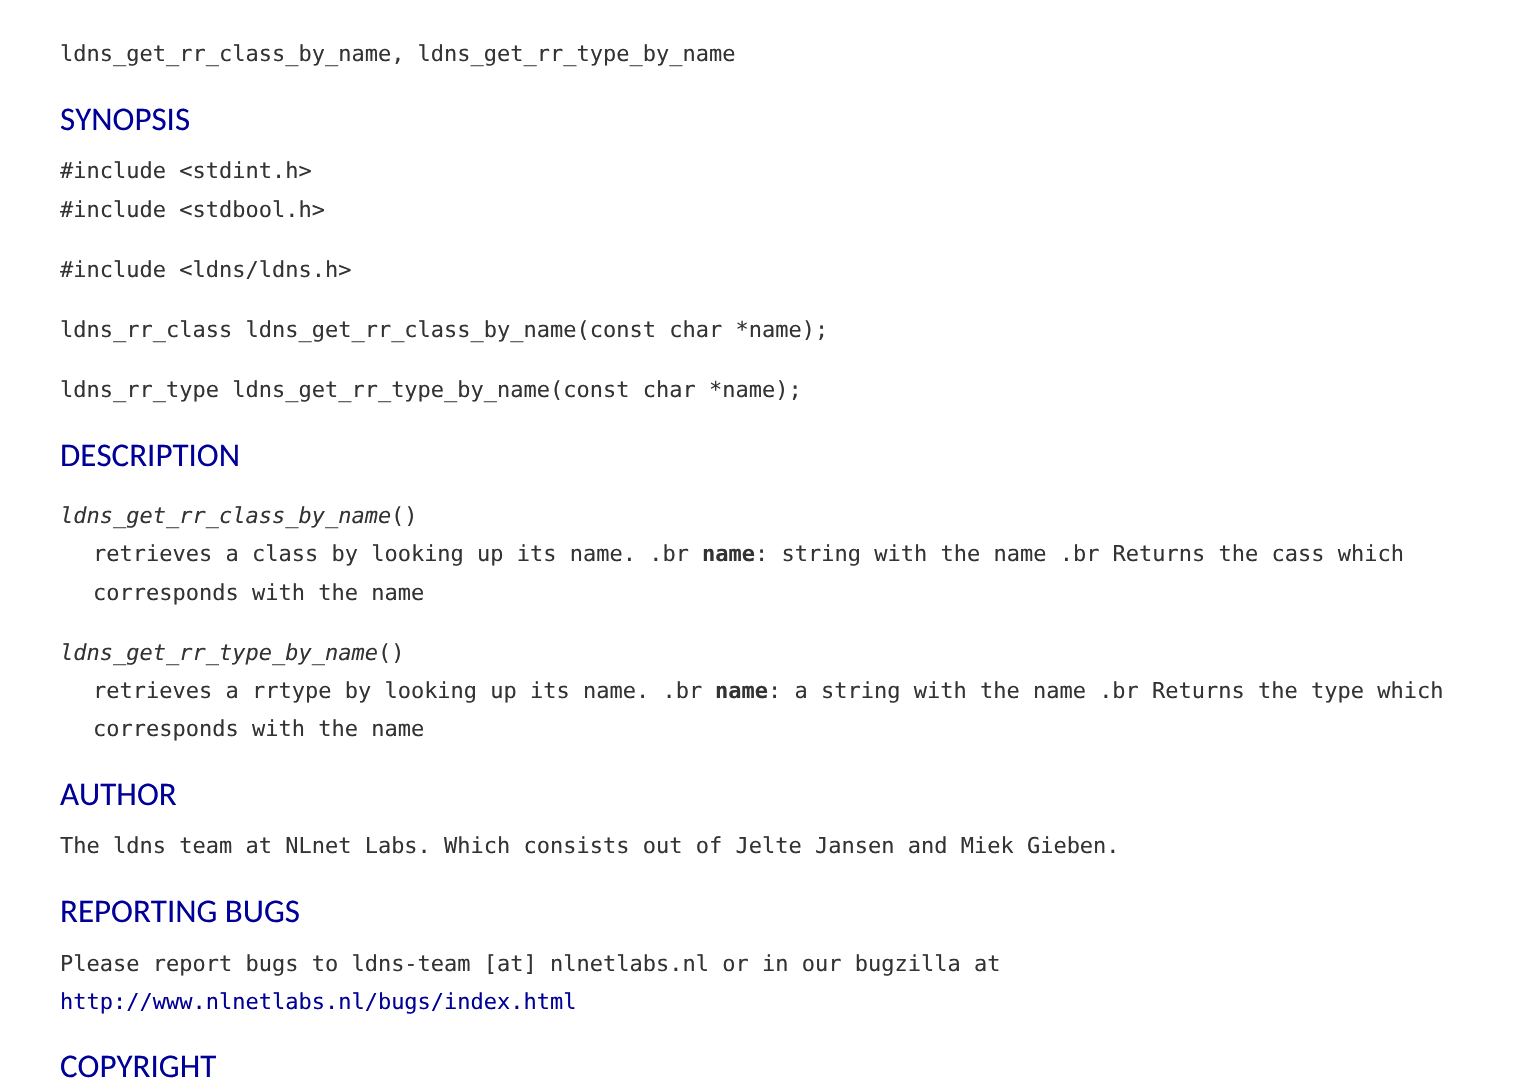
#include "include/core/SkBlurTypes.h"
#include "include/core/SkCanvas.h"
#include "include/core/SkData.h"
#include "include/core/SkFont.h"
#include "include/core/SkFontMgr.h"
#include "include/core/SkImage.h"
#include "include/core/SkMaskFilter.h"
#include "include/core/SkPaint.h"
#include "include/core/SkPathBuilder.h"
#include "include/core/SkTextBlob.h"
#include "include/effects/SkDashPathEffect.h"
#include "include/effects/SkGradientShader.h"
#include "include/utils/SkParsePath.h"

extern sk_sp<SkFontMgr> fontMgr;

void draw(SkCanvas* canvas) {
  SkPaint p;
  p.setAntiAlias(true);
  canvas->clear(SK_ColorWHITE);
  SkFont font1(fontMgr->matchFamilyStyle("DejaVu Sans Mono", SkFontStyle::Normal()), 22);
  font1.setSubpixel(true);
  p.setColor(SkColorSetRGB(51, 51, 51));
  canvas->drawString("ldns_get_rr_class_by_name, ldns_get_rr_type_by_name", 60, 61, font1, p);
  SkFont font2(fontMgr->matchFamilyStyle("Carlito", SkFontStyle::Normal()), 33);
  font2.setSubpixel(true);
  p.setColor(SkColorSetRGB(0, 0, 153));
  canvas->drawString("SYNOPSIS", 60, 130, font2, p);
  p.setColor(SkColorSetRGB(51, 51, 51));
  canvas->drawString("#include <stdint.h>", 60, 178, font1, p);
  canvas->drawString("#include <stdbool.h>", 60, 217, font1, p);
  canvas->drawString("#include <ldns/ldns.h>", 60, 277, font1, p);
  canvas->drawString("ldns_rr_class ldns_get_rr_class_by_name(const char *name);", 60, 337, font1, p);
  canvas->drawString("ldns_rr_type ldns_get_rr_type_by_name(const char *name);", 60, 397, font1, p);
  p.setColor(SkColorSetRGB(0, 0, 153));
  canvas->drawString("DESCRIPTION", 60, 466, font2, p);
  SkFont font3(fontMgr->matchFamilyStyle("DejaVu Sans Mono", SkFontStyle::Italic()), 22);
  font3.setSubpixel(true);
  p.setColor(SkColorSetRGB(51, 51, 51));
  canvas->drawString("ldns_get_rr_class_by_name", 60, 523, font3, p);
  canvas->drawString("()", 391, 523, font1, p);
  canvas->drawString("retrieves a class by looking up its name. .br", 93, 561, font1, p);
  SkFont font4(fontMgr->matchFamilyStyle("DejaVu Sans Mono", SkFontStyle::Bold()), 22);
  font4.setSubpixel(true);
  canvas->drawString("name", 702, 561, font4, p);
  canvas->drawString(": string with the name .br Returns the cass which", 755, 561, font1, p);
  canvas->drawString("corresponds with the name", 93, 600, font1, p);
  canvas->drawString("ldns_get_rr_type_by_name", 60, 660, font3, p);
  canvas->drawString("()", 378, 660, font1, p);
  canvas->drawString("retrieves a rrtype by looking up its name. .br", 93, 698, font1, p);
  canvas->drawString("name", 715, 698, font4, p);
  canvas->drawString(": a string with the name .br Returns the type which", 768, 698, font1, p);
  canvas->drawString("corresponds with the name", 93, 736, font1, p);
  p.setColor(SkColorSetRGB(0, 0, 153));
  canvas->drawString("AUTHOR", 60, 805, font2, p);
  p.setColor(SkColorSetRGB(51, 51, 51));
  canvas->drawString("The ldns team at NLnet Labs. Which consists out of Jelte Jansen and Miek Gieben.", 60, 853, font1, p);
  p.setColor(SkColorSetRGB(0, 0, 153));
  canvas->drawString("REPORTING BUGS", 60, 922, font2, p);
  p.setColor(SkColorSetRGB(51, 51, 51));
  canvas->drawString("Please report bugs to ldns-team [at] nlnetlabs.nl or in our bugzilla at", 60, 971, font1, p);
  p.setColor(SkColorSetRGB(0, 0, 153));
  canvas->drawString("http://www.nlnetlabs.nl/bugs/index.html", 60, 1009, font1, p);
  canvas->drawString("COPYRIGHT", 60, 1077, font2, p);
}
